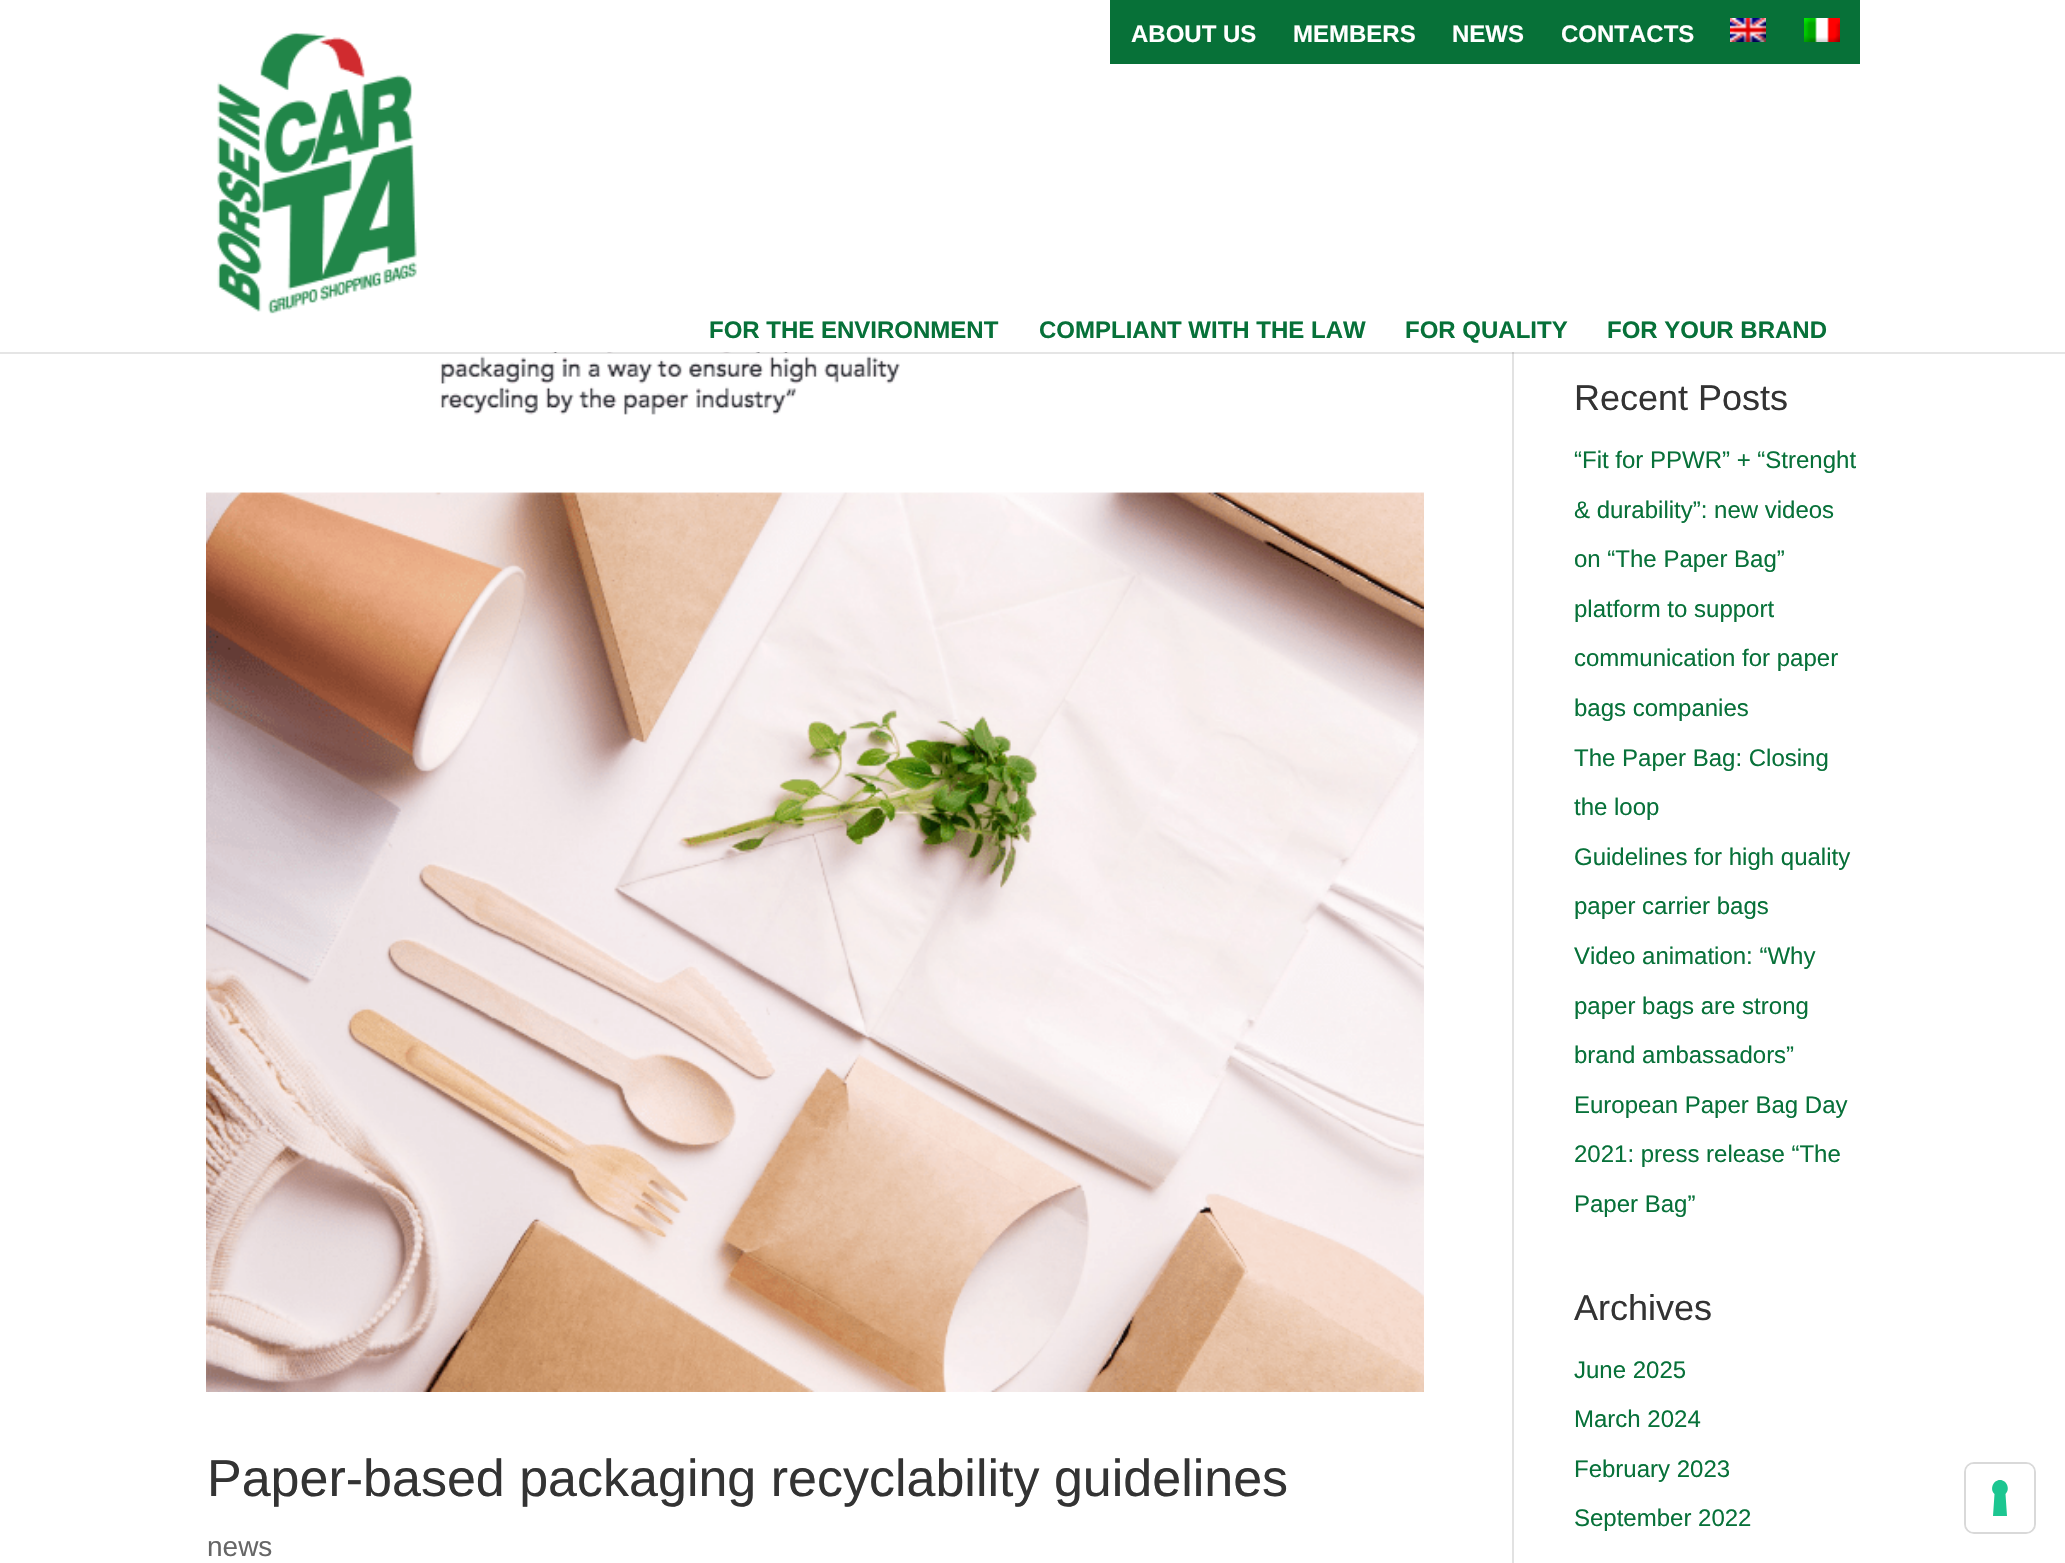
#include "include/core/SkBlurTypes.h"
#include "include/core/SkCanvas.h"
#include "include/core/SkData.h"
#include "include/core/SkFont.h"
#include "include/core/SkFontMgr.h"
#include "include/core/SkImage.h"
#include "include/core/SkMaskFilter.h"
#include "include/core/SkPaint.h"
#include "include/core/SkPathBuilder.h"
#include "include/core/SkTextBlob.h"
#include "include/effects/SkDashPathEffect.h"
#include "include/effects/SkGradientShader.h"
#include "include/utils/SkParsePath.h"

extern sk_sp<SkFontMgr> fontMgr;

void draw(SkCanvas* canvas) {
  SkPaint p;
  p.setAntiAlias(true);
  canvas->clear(SK_ColorWHITE);
  p.setColor(SkColorSetRGB(7, 113, 56));
  canvas->drawRect(SkRect::MakeLTRB(1110, 0, 1860, 64), p);
  canvas->drawImageRect(SkImages::DeferredFromEncodedData(SkData::MakeFromFileName("images/1.png")), SkRect::MakeLTRB(1730, 18, 1766, 42), SkSamplingOptions());
  canvas->drawImageRect(SkImages::DeferredFromEncodedData(SkData::MakeFromFileName("images/2.png")), SkRect::MakeLTRB(1804, 18, 1840, 42), SkSamplingOptions());
  p.setColor(SkColorSetRGB(226, 226, 226));
  canvas->drawRect(SkRect::MakeLTRB(1512, 352, 1514, 1563), p);
  canvas->drawImageRect(SkImages::DeferredFromEncodedData(SkData::MakeFromFileName("images/4.png")), SkRect::MakeLTRB(206, 352, 1424, 1392), SkSamplingOptions());
  p.setColor(SkColorSetARGB(26, 0, 0, 0));
  canvas->drawRect(SkRect::MakeLTRB(0, 352, 2065, 354), p);
  canvas->drawImageRect(SkImages::DeferredFromEncodedData(SkData::MakeFromFileName("images/3.png")), SkRect::MakeLTRB(217, 32, 417, 314), SkSamplingOptions());
  p.setStyle(SkPaint::kStroke_Style);
  p.setStrokeWidth(2);
  p.setColor(SkColorSetRGB(217, 217, 217));
  canvas->drawRoundRect(SkRect::MakeLTRB(1965, 1463, 2035, 1533), 9, 9, p);
  p.setStyle(SkPaint::kFill_Style);
  p.setColor(SK_ColorWHITE);
  canvas->drawRoundRect(SkRect::MakeLTRB(1966, 1464, 2034, 1532), 8, 8, p);
  p.setColor(SkColorSetRGB(28, 198, 145));
  canvas->drawPath(SkPathBuilder(SkPathFillType::kEvenOdd).moveTo(2000, 1480).cubicTo(2007, 1480, 2010.5f, 1489.5f, 2005.5f, 1494).lineTo(2007, 1516).lineTo(1993, 1516).lineTo(1994.5f, 1494).cubicTo(1989.5f, 1489.5f, 1993, 1480, 2000, 1480).close().detach(), p);
  SkFont font1(fontMgr->matchFamilyStyle("Liberation Sans", SkFontStyle::Bold()), 24);
  font1.setSubpixel(true);
  p.setColor(SK_ColorWHITE);
  canvas->drawString("ABOUT US", 1131, 42, font1, p);
  canvas->drawString("MEMBERS", 1293, 42, font1, p);
  canvas->drawString("NEWS", 1452, 42, font1, p);
  canvas->drawString("CONTACTS", 1561, 42, font1, p);
  p.setColor(SkColorSetRGB(7, 113, 57));
  canvas->drawString("FOR THE ENVIRONMENT", 709, 338, font1, p);
  canvas->drawString("COMPLIANT WITH THE LAW", 1039, 338, font1, p);
  canvas->drawString("FOR QUALITY", 1405, 338, font1, p);
  canvas->drawString("FOR YOUR BRAND", 1607, 338, font1, p);
  SkFont font2(fontMgr->matchFamilyStyle("Liberation Sans", SkFontStyle::Normal()), 52);
  font2.setSubpixel(true);
  p.setColor(SkColorSetRGB(51, 51, 51));
  canvas->drawString("Paper-based packaging recyclability guidelines", 207, 1496, font2, p);
  SkFont font3(fontMgr->matchFamilyStyle("Liberation Sans", SkFontStyle::Normal()), 28);
  font3.setSubpixel(true);
  p.setColor(SkColorSetRGB(102, 102, 102));
  canvas->drawString("news", 207, 1556, font3, p);
  SkFont font4(fontMgr->matchFamilyStyle("Liberation Sans", SkFontStyle::Normal()), 36);
  font4.setSubpixel(true);
  p.setColor(SkColorSetRGB(51, 51, 51));
  canvas->drawString("Recent Posts", 1574, 410, font4, p);
  SkFont font5(fontMgr->matchFamilyStyle("Liberation Sans", SkFontStyle::Normal()), 24);
  font5.setSubpixel(true);
  p.setColor(SkColorSetRGB(7, 113, 57));
  canvas->drawString("“Fit for PPWR” + “Strenght", 1574, 468, font5, p);
  canvas->drawString("& durability”: new videos", 1574, 518, font5, p);
  canvas->drawString("on “The Paper Bag”", 1574, 567, font5, p);
  canvas->drawString("platform to support", 1574, 617, font5, p);
  canvas->drawString("communication for paper", 1574, 666, font5, p);
  canvas->drawString("bags companies", 1574, 716, font5, p);
  canvas->drawString("The Paper Bag: Closing", 1574, 766, font5, p);
  canvas->drawString("the loop", 1574, 815, font5, p);
  canvas->drawString("Guidelines for high quality", 1574, 865, font5, p);
  canvas->drawString("paper carrier bags", 1574, 914, font5, p);
  canvas->drawString("Video animation: “Why", 1574, 964, font5, p);
  canvas->drawString("paper bags are strong", 1574, 1014, font5, p);
  canvas->drawString("brand ambassadors”", 1574, 1063, font5, p);
  canvas->drawString("European Paper Bag Day", 1574, 1113, font5, p);
  canvas->drawString("2021: press release “The", 1574, 1162, font5, p);
  canvas->drawString("Paper Bag”", 1574, 1212, font5, p);
  p.setColor(SkColorSetRGB(51, 51, 51));
  canvas->drawString("Archives", 1574, 1320, font4, p);
  p.setColor(SkColorSetRGB(7, 113, 57));
  canvas->drawString("June 2025", 1574, 1378, font5, p);
  canvas->drawString("March 2024", 1574, 1427, font5, p);
  canvas->drawString("February 2023", 1574, 1477, font5, p);
  canvas->drawString("September 2022", 1574, 1526, font5, p);
}
